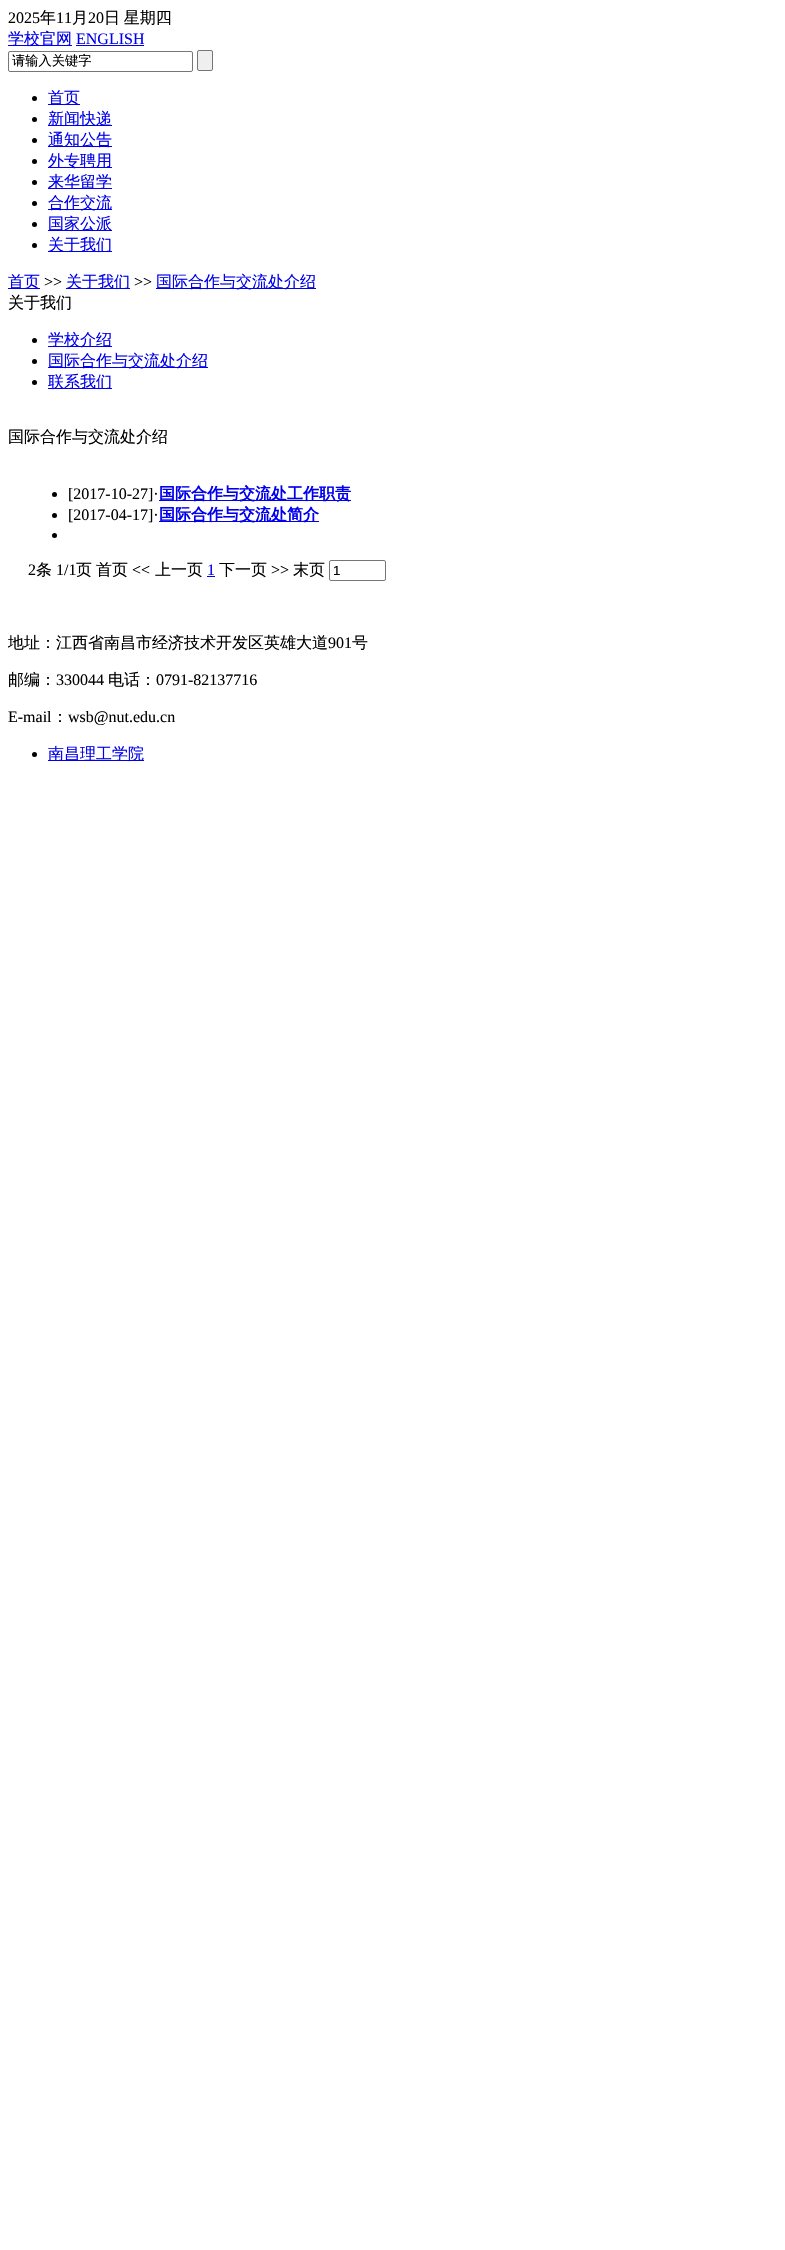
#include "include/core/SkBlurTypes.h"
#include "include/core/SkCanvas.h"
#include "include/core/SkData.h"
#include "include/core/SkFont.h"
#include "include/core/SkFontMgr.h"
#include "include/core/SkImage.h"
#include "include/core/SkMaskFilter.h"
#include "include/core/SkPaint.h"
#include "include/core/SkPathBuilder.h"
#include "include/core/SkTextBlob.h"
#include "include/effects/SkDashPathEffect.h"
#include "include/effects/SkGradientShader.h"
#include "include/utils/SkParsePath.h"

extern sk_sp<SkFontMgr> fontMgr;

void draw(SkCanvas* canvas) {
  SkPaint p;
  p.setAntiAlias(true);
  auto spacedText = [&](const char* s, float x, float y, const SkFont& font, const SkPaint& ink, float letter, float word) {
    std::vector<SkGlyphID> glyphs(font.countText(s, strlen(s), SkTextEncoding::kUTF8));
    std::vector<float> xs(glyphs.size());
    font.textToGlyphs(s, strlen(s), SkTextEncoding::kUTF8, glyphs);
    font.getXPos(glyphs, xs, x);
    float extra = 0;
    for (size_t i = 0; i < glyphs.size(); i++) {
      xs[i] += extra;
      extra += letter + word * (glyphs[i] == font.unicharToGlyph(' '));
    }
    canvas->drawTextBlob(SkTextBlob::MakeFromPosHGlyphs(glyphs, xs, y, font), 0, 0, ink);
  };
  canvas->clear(SK_ColorWHITE);
  p.setColor(SkColorSetRGB(0, 0, 238));
  canvas->drawRect(SkRect::MakeLTRB(8, 45, 72, 46), p);
  canvas->drawRect(SkRect::MakeLTRB(76, 45, 144, 46), p);
  p.setStyle(SkPaint::kStroke_Style);
  p.setStrokeWidth(1);
  p.setColor(SkColorSetRGB(118, 118, 118));
  canvas->drawRoundRect(SkRect::MakeLTRB(8.5f, 51.5f, 192.5f, 71.5f), 1.5f, 1.5f, p);
  p.setStyle(SkPaint::kFill_Style);
  p.setColor(SkColorSetRGB(239, 239, 239));
  canvas->drawRoundRect(SkRect::MakeLTRB(197.5f, 50.5f, 212.5f, 70.5f), 1.5f, 1.5f, p);
  p.setStyle(SkPaint::kStroke_Style);
  p.setColor(SkColorSetRGB(118, 118, 118));
  canvas->drawRoundRect(SkRect::MakeLTRB(197.5f, 50.5f, 212.5f, 70.5f), 1.5f, 1.5f, p);
  p.setStyle(SkPaint::kFill_Style);
  p.setColor(SK_ColorBLACK);
  canvas->drawCircle(34.5f, 98.5f, 2.5f, p);
  p.setColor(SkColorSetRGB(0, 0, 238));
  canvas->drawRect(SkRect::MakeLTRB(48, 104, 80, 105), p);
  p.setColor(SK_ColorBLACK);
  canvas->drawCircle(34.5f, 119.5f, 2.5f, p);
  p.setColor(SkColorSetRGB(0, 0, 238));
  canvas->drawRect(SkRect::MakeLTRB(48, 125, 112, 126), p);
  p.setColor(SK_ColorBLACK);
  canvas->drawCircle(34.5f, 140.5f, 2.5f, p);
  p.setColor(SkColorSetRGB(0, 0, 238));
  canvas->drawRect(SkRect::MakeLTRB(48, 146, 112, 147), p);
  p.setColor(SK_ColorBLACK);
  canvas->drawCircle(34.5f, 161.5f, 2.5f, p);
  p.setColor(SkColorSetRGB(0, 0, 238));
  canvas->drawRect(SkRect::MakeLTRB(48, 167, 112, 168), p);
  p.setColor(SK_ColorBLACK);
  canvas->drawCircle(34.5f, 182.5f, 2.5f, p);
  p.setColor(SkColorSetRGB(0, 0, 238));
  canvas->drawRect(SkRect::MakeLTRB(48, 188, 112, 189), p);
  p.setColor(SK_ColorBLACK);
  canvas->drawCircle(34.5f, 203.5f, 2.5f, p);
  p.setColor(SkColorSetRGB(0, 0, 238));
  canvas->drawRect(SkRect::MakeLTRB(48, 209, 112, 210), p);
  p.setColor(SK_ColorBLACK);
  canvas->drawCircle(34.5f, 224.5f, 2.5f, p);
  p.setColor(SkColorSetRGB(0, 0, 238));
  canvas->drawRect(SkRect::MakeLTRB(48, 230, 112, 231), p);
  p.setColor(SK_ColorBLACK);
  canvas->drawCircle(34.5f, 245.5f, 2.5f, p);
  p.setColor(SkColorSetRGB(0, 0, 238));
  canvas->drawRect(SkRect::MakeLTRB(48, 251, 112, 252), p);
  canvas->drawRect(SkRect::MakeLTRB(8, 288, 40, 289), p);
  canvas->drawRect(SkRect::MakeLTRB(66, 288, 130, 289), p);
  canvas->drawRect(SkRect::MakeLTRB(156, 288, 316, 289), p);
  p.setColor(SK_ColorBLACK);
  canvas->drawCircle(34.5f, 340.5f, 2.5f, p);
  p.setColor(SkColorSetRGB(0, 0, 238));
  canvas->drawRect(SkRect::MakeLTRB(48, 346, 112, 347), p);
  p.setColor(SK_ColorBLACK);
  canvas->drawCircle(34.5f, 361.5f, 2.5f, p);
  p.setColor(SkColorSetRGB(0, 0, 238));
  canvas->drawRect(SkRect::MakeLTRB(48, 367, 208, 368), p);
  p.setColor(SK_ColorBLACK);
  canvas->drawCircle(34.5f, 382.5f, 2.5f, p);
  p.setColor(SkColorSetRGB(0, 0, 238));
  canvas->drawRect(SkRect::MakeLTRB(48, 388, 112, 389), p);
  p.setColor(SK_ColorBLACK);
  canvas->drawCircle(54.5f, 494.5f, 2.5f, p);
  p.setColor(SkColorSetRGB(0, 0, 238));
  canvas->drawRect(SkRect::MakeLTRB(159, 500, 351, 501), p);
  p.setColor(SK_ColorBLACK);
  canvas->drawCircle(54.5f, 515.5f, 2.5f, p);
  p.setColor(SkColorSetRGB(0, 0, 238));
  canvas->drawRect(SkRect::MakeLTRB(159, 521, 319, 522), p);
  p.setColor(SK_ColorBLACK);
  canvas->drawCircle(54.5f, 535.5f, 2.5f, p);
  p.setColor(SkColorSetRGB(0, 0, 238));
  canvas->drawRect(SkRect::MakeLTRB(207, 576, 215, 577), p);
  p.setStyle(SkPaint::kStroke_Style);
  p.setColor(SkColorSetRGB(118, 118, 118));
  canvas->drawRoundRect(SkRect::MakeLTRB(329.5f, 560.5f, 385.5f, 580.5f), 1.5f, 1.5f, p);
  p.setStyle(SkPaint::kFill_Style);
  p.setColor(SK_ColorBLACK);
  canvas->drawCircle(34.5f, 754.5f, 2.5f, p);
  p.setColor(SkColorSetRGB(0, 0, 238));
  canvas->drawRect(SkRect::MakeLTRB(48, 760, 144, 761), p);
  SkFont font1(fontMgr->matchFamilyStyle("Liberation Serif", SkFontStyle::Normal()), 16);
  font1.setSubpixel(true);
  p.setColor(SK_ColorBLACK);
  canvas->drawString("2025", 8, 23, font1, p);
  SkFont font2(fontMgr->matchFamilyStyle("WenQuanYi Zen Hei", SkFontStyle(500, SkFontStyle::kNormal_Width, SkFontStyle::kUpright_Slant)), 16);
  font2.setSubpixel(true);
  canvas->drawString("年", 40, 23, font2, p);
  canvas->drawString("11", 56, 23, font1, p);
  canvas->drawString("月", 72, 23, font2, p);
  canvas->drawString("20", 88, 23, font1, p);
  spacedText("日 星期四", 104, 23, font2, p, 0, -1);
  p.setColor(SkColorSetRGB(0, 0, 238));
  canvas->drawString("学校官网", 8, 44, font2, p);
  canvas->drawString("ENGLISH", 76, 44, font1, p);
  SkFont font3(fontMgr->matchFamilyStyle("WenQuanYi Zen Hei", SkFontStyle(500, SkFontStyle::kNormal_Width, SkFontStyle::kUpright_Slant)), 13.25f);
  font3.setSubpixel(true);
  p.setColor(SK_ColorBLACK);
  canvas->drawString("请输入关键字", 12, 65, font3, p);
  p.setColor(SkColorSetRGB(0, 0, 238));
  canvas->drawString("首页", 48, 103, font2, p);
  canvas->drawString("新闻快递", 48, 124, font2, p);
  canvas->drawString("通知公告", 48, 145, font2, p);
  canvas->drawString("外专聘用", 48, 166, font2, p);
  canvas->drawString("来华留学", 48, 187, font2, p);
  canvas->drawString("合作交流", 48, 208, font2, p);
  canvas->drawString("国家公派", 48, 229, font2, p);
  canvas->drawString("关于我们", 48, 250, font2, p);
  canvas->drawString("首页", 8, 287, font2, p);
  p.setColor(SK_ColorBLACK);
  canvas->drawString(">>", 44, 287, font1, p);
  p.setColor(SkColorSetRGB(0, 0, 238));
  canvas->drawString("关于我们", 66, 287, font2, p);
  p.setColor(SK_ColorBLACK);
  canvas->drawString(">>", 134, 287, font1, p);
  p.setColor(SkColorSetRGB(0, 0, 238));
  canvas->drawString("国际合作与交流处介绍", 156, 287, font2, p);
  p.setColor(SK_ColorBLACK);
  canvas->drawString("关于我们", 8, 308, font2, p);
  p.setColor(SkColorSetRGB(0, 0, 238));
  canvas->drawString("学校介绍", 48, 345, font2, p);
  canvas->drawString("国际合作与交流处介绍", 48, 366, font2, p);
  canvas->drawString("联系我们", 48, 387, font2, p);
  p.setColor(SK_ColorBLACK);
  canvas->drawString("国际合作与交流处介绍", 8, 442, font2, p);
  canvas->drawString("[2017-10-27]·", 68, 499, font1, p);
  SkFont font4(fontMgr->matchFamilyStyle("WenQuanYi Zen Hei", SkFontStyle::Bold()), 16);
  font4.setSubpixel(true);
  p.setColor(SkColorSetRGB(0, 0, 238));
  canvas->drawString("国际合作与交流处工作职责", 159, 499, font4, p);
  p.setColor(SK_ColorBLACK);
  canvas->drawString("[2017-04-17]·", 68, 520, font1, p);
  p.setColor(SkColorSetRGB(0, 0, 238));
  canvas->drawString("国际合作与交流处简介", 159, 520, font4, p);
  p.setColor(SK_ColorBLACK);
  canvas->drawString("2", 28, 575, font1, p);
  canvas->drawString("条", 36, 575, font2, p);
  canvas->drawString("1/1", 56, 575, font1, p);
  canvas->drawString("页", 76, 575, font2, p);
  canvas->drawString("首页", 96, 575, font2, p);
  canvas->drawString("<<", 132, 575, font1, p);
  canvas->drawString("上一页", 155, 575, font2, p);
  p.setColor(SkColorSetRGB(0, 0, 238));
  canvas->drawString("1", 207, 575, font1, p);
  p.setColor(SK_ColorBLACK);
  canvas->drawString("下一页", 219, 575, font2, p);
  canvas->drawString(">>", 271, 575, font1, p);
  canvas->drawString("末页", 293, 575, font2, p);
  SkFont font5(fontMgr->matchFamilyStyle("Liberation Sans", SkFontStyle::Normal()), 13.25f);
  font5.setSubpixel(true);
  canvas->drawString("1", 333, 575, font5, p);
  canvas->drawString("地址：江西省南昌市经济技术开发区英雄大道", 8, 648, font2, p);
  canvas->drawString("901", 328, 648, font1, p);
  canvas->drawString("号", 352, 648, font2, p);
  canvas->drawString("邮编：", 8, 685, font2, p);
  canvas->drawString("330044", 56, 685, font1, p);
  canvas->drawString("电话：", 108, 685, font2, p);
  canvas->drawString("0791-82137716", 156, 685, font1, p);
  canvas->drawString("E-mail", 8, 722, font1, p);
  canvas->drawString("：", 52, 722, font2, p);
  canvas->drawString("wsb@nut.edu.cn", 68, 722, font1, p);
  p.setColor(SkColorSetRGB(0, 0, 238));
  canvas->drawString("南昌理工学院", 48, 759, font2, p);
}
